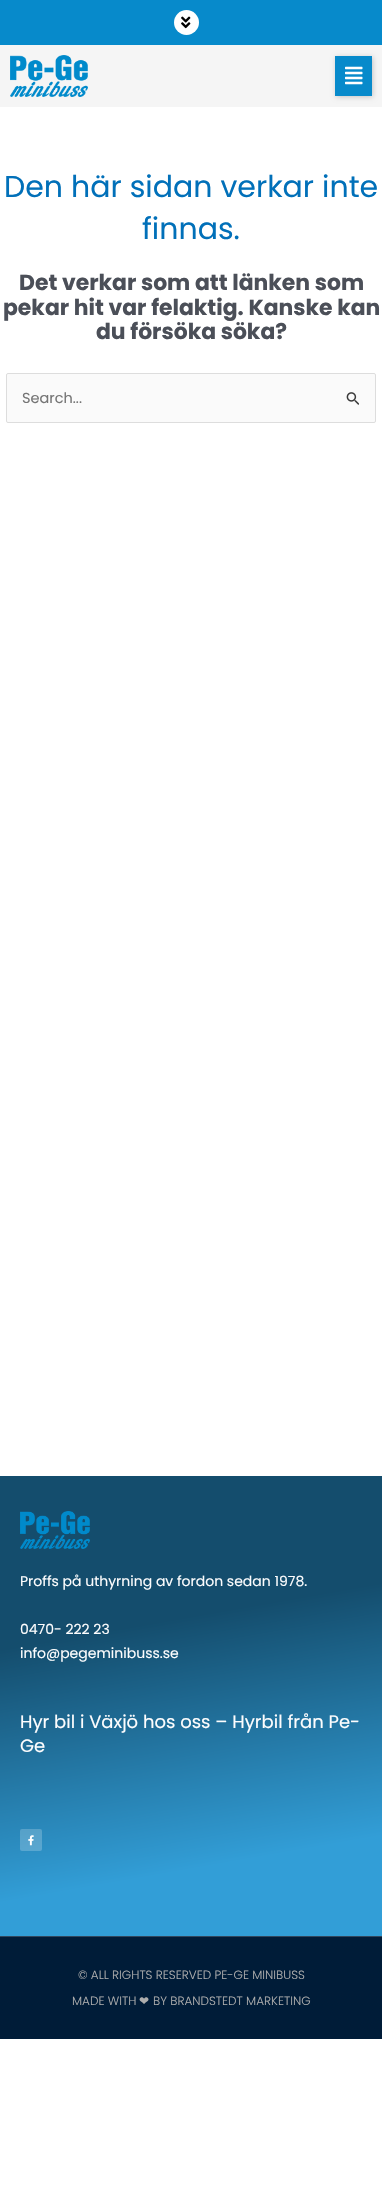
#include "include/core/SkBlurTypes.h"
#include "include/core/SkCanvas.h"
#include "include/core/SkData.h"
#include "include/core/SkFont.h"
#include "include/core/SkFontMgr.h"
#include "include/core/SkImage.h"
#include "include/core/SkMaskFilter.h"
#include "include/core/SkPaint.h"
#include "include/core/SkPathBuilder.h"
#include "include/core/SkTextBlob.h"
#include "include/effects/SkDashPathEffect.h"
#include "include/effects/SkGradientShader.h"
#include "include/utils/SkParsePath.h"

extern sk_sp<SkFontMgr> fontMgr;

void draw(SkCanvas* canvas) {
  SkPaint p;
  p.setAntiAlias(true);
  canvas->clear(SK_ColorWHITE);
  p.setColor(SkColorSetRGB(7, 138, 203));
  canvas->drawRect(SkRect::MakeLTRB(0, 0, 382, 45), p);
  p.setColor(SK_ColorWHITE);
  canvas->drawCircle(186.5f, 22.5f, 12.5f, p);
  canvas->drawImageRect(SkImages::DeferredFromEncodedData(SkData::MakeFromFileName("images/1.png")), SkRect::MakeLTRB(181, 16, 191, 29), SkSamplingOptions());
  p.setColor(SkColorSetRGB(245, 245, 245));
  canvas->drawRect(SkRect::MakeLTRB(0, 45, 382, 107), p);
  canvas->drawImageRect(SkImages::DeferredFromEncodedData(SkData::MakeFromFileName("images/2.png")), SkRect::MakeLTRB(10, 55, 88, 97), SkSamplingOptions());
  p.setColor(SkColorSetARGB(51, 0, 0, 0));
  p.setMaskFilter(SkMaskFilter::MakeBlur(kNormal_SkBlurStyle, 2.5f));
  canvas->drawRect(SkRect::MakeLTRB(336, 57, 373, 97), p);
  p.setMaskFilter(nullptr);
  p.setColor(SkColorSetRGB(7, 138, 203));
  canvas->drawRect(SkRect::MakeLTRB(335, 56, 372, 96), p);
  canvas->drawImageRect(SkImages::DeferredFromEncodedData(SkData::MakeFromFileName("images/3.png")), SkRect::MakeLTRB(345, 66, 363, 85), SkSamplingOptions());
  p.setColor(SkColorSetRGB(250, 250, 250));
  canvas->drawRoundRect(SkRect::MakeLTRB(6.5f, 373.5f, 375.5f, 422.5f), 1.5f, 1.5f, p);
  p.setStyle(SkPaint::kStroke_Style);
  p.setStrokeWidth(1);
  p.setColor(SkColorSetRGB(221, 221, 221));
  canvas->drawRoundRect(SkRect::MakeLTRB(6.5f, 373.5f, 375.5f, 422.5f), 1.5f, 1.5f, p);
  canvas->drawImageRect(SkImages::DeferredFromEncodedData(SkData::MakeFromFileName("images/4.png")), SkRect::MakeLTRB(346, 392, 359, 405), SkSamplingOptions());
  p.setStyle(SkPaint::kFill_Style);
  {
    const SkColor colors[] = {SkColorSetRGB(20, 77, 109), SkColorSetRGB(50, 158, 215)};
    const float stops[] = {0.33f, 0.81f};
    const SkPoint ends[] = {{146, 1450}, {236, 1962}};
    p.setShader(SkGradientShader::MakeLinear(ends, colors, stops, 2, SkTileMode::kClamp));
    p.setAlpha(255);
  }
  canvas->drawRect(SkRect::MakeLTRB(0, 1476, 382, 1936), p);
  canvas->drawImageRect(SkImages::DeferredFromEncodedData(SkData::MakeFromFileName("images/5.png")), SkRect::MakeLTRB(20, 1511, 90, 1549), SkSamplingOptions());
  p.setShader(nullptr);
  p.setColor(SkColorSetARGB(54, 255, 255, 255));
  canvas->drawRoundRect(SkRect::MakeLTRB(20, 1829, 42, 1851), 2, 2, p);
  canvas->drawImageRect(SkImages::DeferredFromEncodedData(SkData::MakeFromFileName("images/6.png")), SkRect::MakeLTRB(28, 1835, 34, 1846), SkSamplingOptions());
  p.setColor(SkColorSetRGB(0, 28, 56));
  canvas->drawRect(SkRect::MakeLTRB(0, 1937, 382, 2039), p);
  p.setColor(SkColorSetRGB(48, 71, 94));
  canvas->drawRect(SkRect::MakeLTRB(0, 1936, 382, 1937), p);
  SkFont font1(fontMgr->matchFamilyStyle("Poppins", SkFontStyle::Normal()), 30);
  font1.setSubpixel(true);
  p.setColor(SkColorSetRGB(1, 112, 185));
  canvas->drawString("Den här sidan verkar inte", 4, 197, font1, p);
  canvas->drawString("finnas.", 142, 239, font1, p);
  SkFont font2(fontMgr->matchFamilyStyle("Poppins", SkFontStyle::Bold()), 21.9f);
  font2.setSubpixel(true);
  p.setColor(SkColorSetRGB(75, 79, 88));
  canvas->drawString("Det verkar som att länken som", 19, 290, font2, p);
  canvas->drawString("pekar hit var felaktig. Kanske kan", 3, 315, font2, p);
  canvas->drawString("du försöka söka?", 96, 339, font2, p);
  SkFont font3(fontMgr->matchFamilyStyle("Poppins", SkFontStyle::Normal()), 14.5f);
  font3.setSubpixel(true);
  p.setColor(SkColorSetRGB(117, 117, 117));
  canvas->drawString("Search...", 22, 403, font3, p);
  SkFont font4(fontMgr->matchFamilyStyle("Poppins", SkFontStyle::Normal()), 14);
  font4.setSubpixel(true);
  p.setColor(SkColorSetRGB(253, 253, 254));
  canvas->drawString("Proffs på uthyrning av fordon sedan 1978.", 20, 1586, font4, p);
  canvas->drawString("0470- 222 23", 20, 1634, font4, p);
  canvas->drawString("info@pegeminibuss.se", 20, 1658, font4, p);
  SkFont font5(fontMgr->matchFamilyStyle("Poppins", SkFontStyle::Normal()), 18);
  font5.setSubpixel(true);
  canvas->drawString("Hyr bil i Växjö hos oss – Hyrbil från Pe-", 20, 1728, font5, p);
  canvas->drawString("Ge", 20, 1752, font5, p);
  SkFont font6(fontMgr->matchFamilyStyle("Poppins", SkFontStyle(300, SkFontStyle::kNormal_Width, SkFontStyle::kUpright_Slant)), 12);
  font6.setSubpixel(true);
  p.setColor(SkColorSetRGB(173, 173, 173));
  canvas->drawString("© ALL RIGHTS RESERVED PE-GE MINIBUSS", 78, 1979, font6, p);
  canvas->drawString("MADE WITH", 72, 2005, font6, p);
  SkFont font7(fontMgr->matchFamilyStyle("DejaVu Sans", SkFontStyle::Normal()), 12);
  font7.setSubpixel(true);
  canvas->drawString("❤", 139, 2005, font7, p);
  canvas->drawString("BY BRANDSTEDT MARKETING", 153, 2005, font6, p);
}
